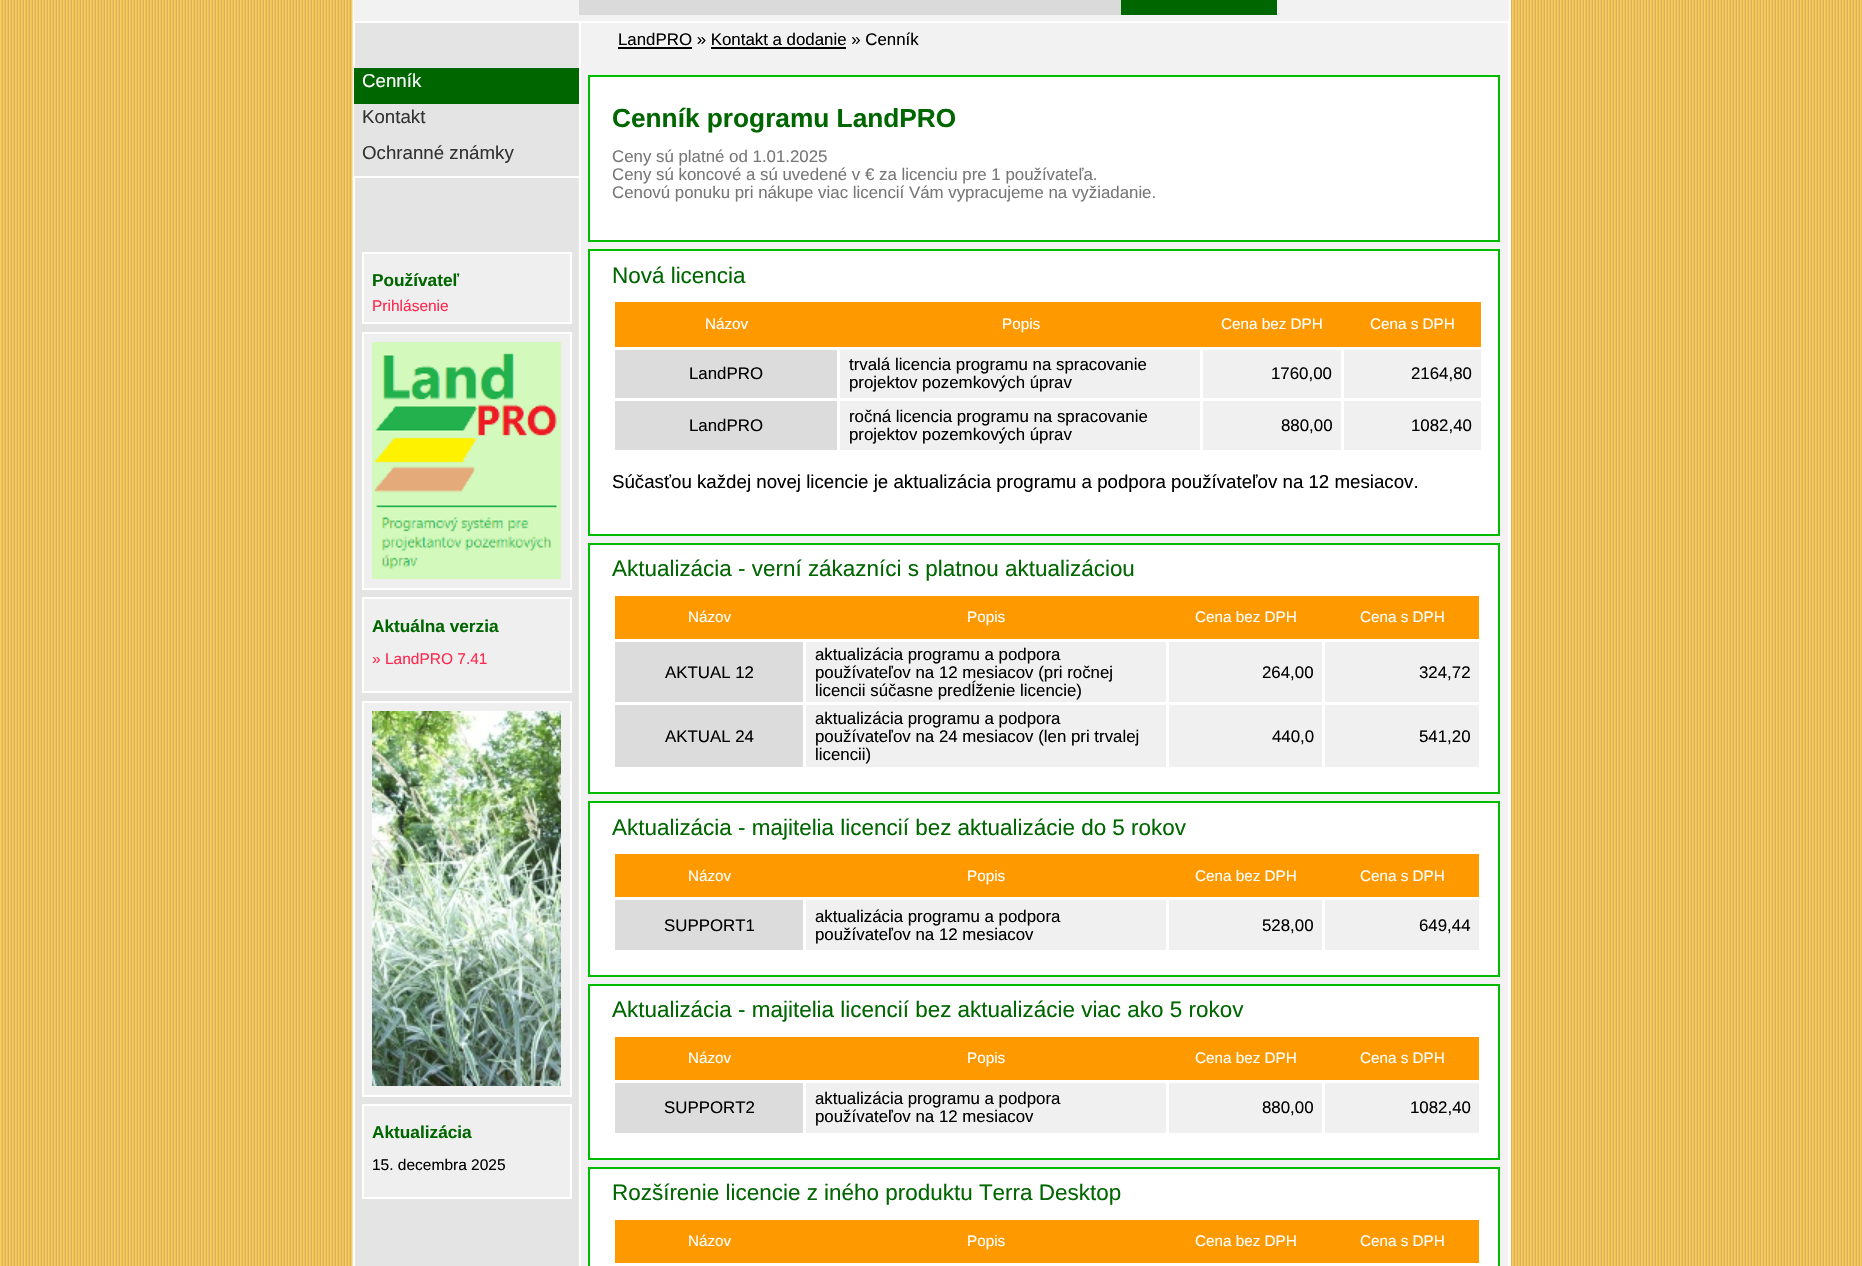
#include "include/core/SkBlurTypes.h"
#include "include/core/SkCanvas.h"
#include "include/core/SkData.h"
#include "include/core/SkFont.h"
#include "include/core/SkFontMgr.h"
#include "include/core/SkImage.h"
#include "include/core/SkMaskFilter.h"
#include "include/core/SkPaint.h"
#include "include/core/SkPathBuilder.h"
#include "include/core/SkTextBlob.h"
#include "include/effects/SkDashPathEffect.h"
#include "include/effects/SkGradientShader.h"
#include "include/utils/SkParsePath.h"

extern sk_sp<SkFontMgr> fontMgr;

void draw(SkCanvas* canvas) {
  SkPaint p;
  p.setAntiAlias(true);
  canvas->clear(SK_ColorWHITE);
  canvas->drawImageRect(SkImages::DeferredFromEncodedData(SkData::MakeFromFileName("images/1.png")), SkRect::MakeLTRB(0, 0, 1862, 1266), SkSamplingOptions());
  canvas->drawImageRect(SkImages::DeferredFromEncodedData(SkData::MakeFromFileName("images/2.png")), SkRect::MakeLTRB(352, 0, 1508, 1266), SkSamplingOptions());
  p.setStyle(SkPaint::kStroke_Style);
  p.setStrokeWidth(2);
  p.setColor(SK_ColorWHITE);
  canvas->drawRect(SkRect::MakeLTRB(354, -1, 1510, 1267), p);
  p.setStyle(SkPaint::kFill_Style);
  p.setColor(SkColorSetRGB(242, 242, 242));
  canvas->drawRect(SkRect::MakeLTRB(354, 0, 1509, 21), p);
  p.setColor(SK_ColorWHITE);
  canvas->drawRect(SkRect::MakeLTRB(354, 21, 1509, 23), p);
  p.setColor(SkColorSetRGB(218, 218, 218));
  canvas->drawRect(SkRect::MakeLTRB(579, 0, 1121, 15), p);
  p.setColor(SkColorSetRGB(0, 102, 0));
  canvas->drawRect(SkRect::MakeLTRB(1121, 0, 1277, 15), p);
  p.setColor(SK_ColorWHITE);
  canvas->drawRect(SkRect::MakeLTRB(1508, 23, 1509, 1266), p);
  canvas->drawRect(SkRect::MakeLTRB(579, 23, 581, 1266), p);
  canvas->drawRect(SkRect::MakeLTRB(354, 176, 579, 178), p);
  p.setColor(SkColorSetRGB(0, 102, 0));
  canvas->drawRect(SkRect::MakeLTRB(354, 68, 579, 104), p);
  p.setColor(SkColorSetRGB(228, 228, 228));
  canvas->drawRect(SkRect::MakeLTRB(354, 104, 579, 176), p);
  p.setColor(SkColorSetRGB(239, 239, 239));
  canvas->drawRect(SkRect::MakeLTRB(363, 253, 571, 323), p);
  p.setStyle(SkPaint::kStroke_Style);
  p.setColor(SK_ColorWHITE);
  canvas->drawRect(SkRect::MakeLTRB(363, 253, 571, 323), p);
  p.setStyle(SkPaint::kFill_Style);
  p.setColor(SkColorSetRGB(239, 239, 239));
  canvas->drawRect(SkRect::MakeLTRB(363, 333, 571, 589), p);
  p.setStyle(SkPaint::kStroke_Style);
  p.setColor(SK_ColorWHITE);
  canvas->drawRect(SkRect::MakeLTRB(363, 333, 571, 589), p);
  canvas->drawImageRect(SkImages::DeferredFromEncodedData(SkData::MakeFromFileName("images/3.png")), SkRect::MakeLTRB(372, 342, 561, 579), SkSamplingOptions());
  p.setStyle(SkPaint::kFill_Style);
  p.setColor(SkColorSetRGB(239, 239, 239));
  canvas->drawRect(SkRect::MakeLTRB(363, 598, 571, 692), p);
  p.setStyle(SkPaint::kStroke_Style);
  p.setColor(SK_ColorWHITE);
  canvas->drawRect(SkRect::MakeLTRB(363, 598, 571, 692), p);
  p.setStyle(SkPaint::kFill_Style);
  p.setColor(SkColorSetRGB(239, 239, 239));
  canvas->drawRect(SkRect::MakeLTRB(363, 702, 571, 1096), p);
  p.setStyle(SkPaint::kStroke_Style);
  p.setColor(SK_ColorWHITE);
  canvas->drawRect(SkRect::MakeLTRB(363, 702, 571, 1096), p);
  canvas->drawImageRect(SkImages::DeferredFromEncodedData(SkData::MakeFromFileName("images/4.png")), SkRect::MakeLTRB(372, 711, 561, 1086), SkSamplingOptions());
  p.setStyle(SkPaint::kFill_Style);
  p.setColor(SkColorSetRGB(239, 239, 239));
  canvas->drawRect(SkRect::MakeLTRB(363, 1105, 571, 1198), p);
  p.setStyle(SkPaint::kStroke_Style);
  p.setColor(SK_ColorWHITE);
  canvas->drawRect(SkRect::MakeLTRB(363, 1105, 571, 1198), p);
  p.setStyle(SkPaint::kFill_Style);
  p.setColor(SK_ColorBLACK);
  canvas->drawRect(SkRect::MakeLTRB(618, 47, 692, 49), p);
  canvas->drawRect(SkRect::MakeLTRB(711, 47, 846, 49), p);
  p.setColor(SK_ColorWHITE);
  canvas->drawRect(SkRect::MakeLTRB(589, 76, 1499, 241), p);
  p.setStyle(SkPaint::kStroke_Style);
  p.setColor(SkColorSetRGB(0, 187, 0));
  canvas->drawRect(SkRect::MakeLTRB(589, 76, 1499, 241), p);
  p.setStyle(SkPaint::kFill_Style);
  p.setColor(SK_ColorWHITE);
  canvas->drawRect(SkRect::MakeLTRB(589, 250, 1499, 535), p);
  p.setStyle(SkPaint::kStroke_Style);
  p.setColor(SkColorSetRGB(0, 187, 0));
  canvas->drawRect(SkRect::MakeLTRB(589, 250, 1499, 535), p);
  p.setStyle(SkPaint::kFill_Style);
  p.setColor(SkColorSetRGB(255, 153, 0));
  canvas->drawRect(SkRect::MakeLTRB(615, 302, 1481, 347), p);
  p.setColor(SkColorSetRGB(220, 220, 220));
  canvas->drawRect(SkRect::MakeLTRB(615, 350, 837, 398), p);
  p.setColor(SkColorSetRGB(240, 240, 240));
  canvas->drawRect(SkRect::MakeLTRB(840, 350, 1200, 398), p);
  canvas->drawRect(SkRect::MakeLTRB(1203, 350, 1341, 398), p);
  canvas->drawRect(SkRect::MakeLTRB(1344, 350, 1481, 398), p);
  p.setColor(SkColorSetRGB(220, 220, 220));
  canvas->drawRect(SkRect::MakeLTRB(615, 401, 837, 450), p);
  p.setColor(SkColorSetRGB(240, 240, 240));
  canvas->drawRect(SkRect::MakeLTRB(840, 401, 1200, 450), p);
  canvas->drawRect(SkRect::MakeLTRB(1203, 401, 1341, 450), p);
  canvas->drawRect(SkRect::MakeLTRB(1344, 401, 1481, 450), p);
  p.setColor(SK_ColorWHITE);
  canvas->drawRect(SkRect::MakeLTRB(589, 544, 1499, 793), p);
  p.setStyle(SkPaint::kStroke_Style);
  p.setColor(SkColorSetRGB(0, 187, 0));
  canvas->drawRect(SkRect::MakeLTRB(589, 544, 1499, 793), p);
  p.setStyle(SkPaint::kFill_Style);
  p.setColor(SkColorSetRGB(255, 153, 0));
  canvas->drawRect(SkRect::MakeLTRB(615, 596, 1479, 639), p);
  p.setColor(SkColorSetRGB(220, 220, 220));
  canvas->drawRect(SkRect::MakeLTRB(615, 642, 803, 702), p);
  p.setColor(SkColorSetRGB(240, 240, 240));
  canvas->drawRect(SkRect::MakeLTRB(806, 642, 1166, 702), p);
  canvas->drawRect(SkRect::MakeLTRB(1169, 642, 1322, 702), p);
  canvas->drawRect(SkRect::MakeLTRB(1325, 642, 1479, 702), p);
  p.setColor(SkColorSetRGB(220, 220, 220));
  canvas->drawRect(SkRect::MakeLTRB(615, 705, 803, 767), p);
  p.setColor(SkColorSetRGB(240, 240, 240));
  canvas->drawRect(SkRect::MakeLTRB(806, 705, 1166, 767), p);
  canvas->drawRect(SkRect::MakeLTRB(1169, 705, 1322, 767), p);
  canvas->drawRect(SkRect::MakeLTRB(1325, 705, 1479, 767), p);
  p.setColor(SK_ColorWHITE);
  canvas->drawRect(SkRect::MakeLTRB(589, 802, 1499, 976), p);
  p.setStyle(SkPaint::kStroke_Style);
  p.setColor(SkColorSetRGB(0, 187, 0));
  canvas->drawRect(SkRect::MakeLTRB(589, 802, 1499, 976), p);
  p.setStyle(SkPaint::kFill_Style);
  p.setColor(SkColorSetRGB(255, 153, 0));
  canvas->drawRect(SkRect::MakeLTRB(615, 854, 1479, 897), p);
  p.setColor(SkColorSetRGB(220, 220, 220));
  canvas->drawRect(SkRect::MakeLTRB(615, 900, 803, 950), p);
  p.setColor(SkColorSetRGB(240, 240, 240));
  canvas->drawRect(SkRect::MakeLTRB(806, 900, 1166, 950), p);
  canvas->drawRect(SkRect::MakeLTRB(1169, 900, 1322, 950), p);
  canvas->drawRect(SkRect::MakeLTRB(1325, 900, 1479, 950), p);
  p.setColor(SK_ColorWHITE);
  canvas->drawRect(SkRect::MakeLTRB(589, 985, 1499, 1159), p);
  p.setStyle(SkPaint::kStroke_Style);
  p.setColor(SkColorSetRGB(0, 187, 0));
  canvas->drawRect(SkRect::MakeLTRB(589, 985, 1499, 1159), p);
  p.setStyle(SkPaint::kFill_Style);
  p.setColor(SkColorSetRGB(255, 153, 0));
  canvas->drawRect(SkRect::MakeLTRB(615, 1037, 1479, 1080), p);
  p.setColor(SkColorSetRGB(220, 220, 220));
  canvas->drawRect(SkRect::MakeLTRB(615, 1083, 803, 1133), p);
  p.setColor(SkColorSetRGB(240, 240, 240));
  canvas->drawRect(SkRect::MakeLTRB(806, 1083, 1166, 1133), p);
  canvas->drawRect(SkRect::MakeLTRB(1169, 1083, 1322, 1133), p);
  canvas->drawRect(SkRect::MakeLTRB(1325, 1083, 1479, 1133), p);
  p.setColor(SK_ColorWHITE);
  canvas->drawRect(SkRect::MakeLTRB(589, 1168, 1499, 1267), p);
  p.setStyle(SkPaint::kStroke_Style);
  p.setColor(SkColorSetRGB(0, 187, 0));
  canvas->drawRect(SkRect::MakeLTRB(589, 1168, 1499, 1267), p);
  p.setStyle(SkPaint::kFill_Style);
  p.setColor(SkColorSetRGB(255, 153, 0));
  canvas->drawRect(SkRect::MakeLTRB(615, 1220, 1479, 1263), p);
  SkFont font1(fontMgr->matchFamilyStyle("Liberation Sans", SkFontStyle::Normal()), 18.7f);
  font1.setSubpixel(true);
  p.setColor(SK_ColorWHITE);
  canvas->drawString("Cenník", 362, 87, font1, p);
  p.setColor(SkColorSetRGB(51, 51, 51));
  canvas->drawString("Kontakt", 362, 123, font1, p);
  canvas->drawString("Ochranné známky", 362, 159, font1, p);
  SkFont font2(fontMgr->matchFamilyStyle("Liberation Sans", SkFontStyle::Bold()), 17.25f);
  font2.setSubpixel(true);
  p.setColor(SkColorSetRGB(0, 102, 0));
  canvas->drawString("Používateľ", 372, 286, font2, p);
  SkFont font3(fontMgr->matchFamilyStyle("Liberation Sans", SkFontStyle::Normal()), 15.5f);
  font3.setSubpixel(true);
  p.setColor(SkColorSetRGB(255, 40, 78));
  canvas->drawString("Prihlásenie", 372, 311, font3, p);
  p.setColor(SkColorSetRGB(0, 102, 0));
  canvas->drawString("Aktuálna verzia", 372, 632, font2, p);
  p.setColor(SkColorSetRGB(255, 40, 78));
  canvas->drawString("» LandPRO 7.41", 372, 664, font3, p);
  p.setColor(SkColorSetRGB(0, 102, 0));
  canvas->drawString("Aktualizácia", 372, 1138, font2, p);
  p.setColor(SK_ColorBLACK);
  canvas->drawString("15. decembra 2025", 372, 1170, font3, p);
  SkFont font4(fontMgr->matchFamilyStyle("Liberation Sans", SkFontStyle::Normal()), 16.85f);
  font4.setSubpixel(true);
  canvas->drawString("LandPRO » Kontakt a dodanie » Cenník", 618, 45, font4, p);
  SkFont font5(fontMgr->matchFamilyStyle("Liberation Sans", SkFontStyle::Bold()), 26.25f);
  font5.setSubpixel(true);
  p.setColor(SkColorSetRGB(0, 102, 0));
  canvas->drawString("Cenník programu LandPRO", 612, 127, font5, p);
  p.setColor(SkColorSetRGB(119, 119, 119));
  canvas->drawString("Ceny sú platné od 1.01.2025", 612, 162, font4, p);
  canvas->drawString("Ceny sú koncové a sú uvedené v € za licenciu pre 1 používateľa.", 612, 180, font4, p);
  canvas->drawString("Cenovú ponuku pri nákupe viac licencií Vám vypracujeme na vyžiadanie.", 612, 198, font4, p);
  SkFont font6(fontMgr->matchFamilyStyle("Liberation Sans", SkFontStyle::Normal()), 22.45f);
  font6.setSubpixel(true);
  p.setColor(SkColorSetRGB(0, 102, 0));
  canvas->drawString("Nová licencia", 612, 283, font6, p);
  SkFont font7(fontMgr->matchFamilyStyle("Liberation Sans", SkFontStyle::Normal()), 15.25f);
  font7.setSubpixel(true);
  p.setColor(SK_ColorWHITE);
  canvas->drawString("Názov", 705, 329, font7, p);
  canvas->drawString("Popis", 1002, 329, font7, p);
  canvas->drawString("Cena bez DPH", 1221, 329, font7, p);
  canvas->drawString("Cena s DPH", 1370, 329, font7, p);
  p.setColor(SK_ColorBLACK);
  canvas->drawString("LandPRO", 689, 379, font4, p);
  canvas->drawString("trvalá licencia programu na spracovanie", 849, 370, font4, p);
  canvas->drawString("projektov pozemkových úprav", 849, 388, font4, p);
  canvas->drawString("1760,00", 1271, 379, font4, p);
  canvas->drawString("2164,80", 1411, 379, font4, p);
  canvas->drawString("LandPRO", 689, 431, font4, p);
  canvas->drawString("ročná licencia programu na spracovanie", 849, 422, font4, p);
  canvas->drawString("projektov pozemkových úprav", 849, 440, font4, p);
  canvas->drawString("880,00", 1281, 431, font4, p);
  canvas->drawString("1082,40", 1411, 431, font4, p);
  canvas->drawString("Súčasťou každej novej licencie je aktualizácia programu a podpora používateľov na 12 mesiacov.", 612, 488, font1, p);
  p.setColor(SkColorSetRGB(0, 102, 0));
  canvas->drawString("Aktualizácia - verní zákazníci s platnou aktualizáciou", 612, 576, font6, p);
  p.setColor(SK_ColorWHITE);
  canvas->drawString("Názov", 688, 622, font7, p);
  canvas->drawString("Popis", 967, 622, font7, p);
  canvas->drawString("Cena bez DPH", 1195, 622, font7, p);
  canvas->drawString("Cena s DPH", 1360, 622, font7, p);
  p.setColor(SK_ColorBLACK);
  canvas->drawString("AKTUAL 12", 665, 678, font4, p);
  canvas->drawString("aktualizácia programu a podpora", 815, 660, font4, p);
  canvas->drawString("používateľov na 12 mesiacov (pri ročnej", 815, 678, font4, p);
  canvas->drawString("licencii súčasne predĺženie licencie)", 815, 696, font4, p);
  canvas->drawString("264,00", 1262, 678, font4, p);
  canvas->drawString("324,72", 1419, 678, font4, p);
  canvas->drawString("AKTUAL 24", 665, 742, font4, p);
  canvas->drawString("aktualizácia programu a podpora", 815, 724, font4, p);
  canvas->drawString("používateľov na 24 mesiacov (len pri trvalej", 815, 742, font4, p);
  canvas->drawString("licencii)", 815, 760, font4, p);
  canvas->drawString("440,0", 1272, 742, font4, p);
  canvas->drawString("541,20", 1419, 742, font4, p);
  p.setColor(SkColorSetRGB(0, 102, 0));
  canvas->drawString("Aktualizácia - majitelia licencií bez aktualizácie do 5 rokov", 612, 835, font6, p);
  p.setColor(SK_ColorWHITE);
  canvas->drawString("Názov", 688, 881, font7, p);
  canvas->drawString("Popis", 967, 881, font7, p);
  canvas->drawString("Cena bez DPH", 1195, 881, font7, p);
  canvas->drawString("Cena s DPH", 1360, 881, font7, p);
  p.setColor(SK_ColorBLACK);
  canvas->drawString("SUPPORT1", 664, 931, font4, p);
  canvas->drawString("aktualizácia programu a podpora", 815, 922, font4, p);
  canvas->drawString("používateľov na 12 mesiacov", 815, 940, font4, p);
  canvas->drawString("528,00", 1262, 931, font4, p);
  canvas->drawString("649,44", 1419, 931, font4, p);
  p.setColor(SkColorSetRGB(0, 102, 0));
  canvas->drawString("Aktualizácia - majitelia licencií bez aktualizácie viac ako 5 rokov", 612, 1017, font6, p);
  p.setColor(SK_ColorWHITE);
  canvas->drawString("Názov", 688, 1063, font7, p);
  canvas->drawString("Popis", 967, 1063, font7, p);
  canvas->drawString("Cena bez DPH", 1195, 1063, font7, p);
  canvas->drawString("Cena s DPH", 1360, 1063, font7, p);
  p.setColor(SK_ColorBLACK);
  canvas->drawString("SUPPORT2", 664, 1113, font4, p);
  canvas->drawString("aktualizácia programu a podpora", 815, 1104, font4, p);
  canvas->drawString("používateľov na 12 mesiacov", 815, 1122, font4, p);
  canvas->drawString("880,00", 1262, 1113, font4, p);
  canvas->drawString("1082,40", 1410, 1113, font4, p);
  p.setColor(SkColorSetRGB(0, 102, 0));
  canvas->drawString("Rozšírenie licencie z iného produktu Terra Desktop", 612, 1200, font6, p);
  p.setColor(SK_ColorWHITE);
  canvas->drawString("Názov", 688, 1246, font7, p);
  canvas->drawString("Popis", 967, 1246, font7, p);
  canvas->drawString("Cena bez DPH", 1195, 1246, font7, p);
  canvas->drawString("Cena s DPH", 1360, 1246, font7, p);
}
